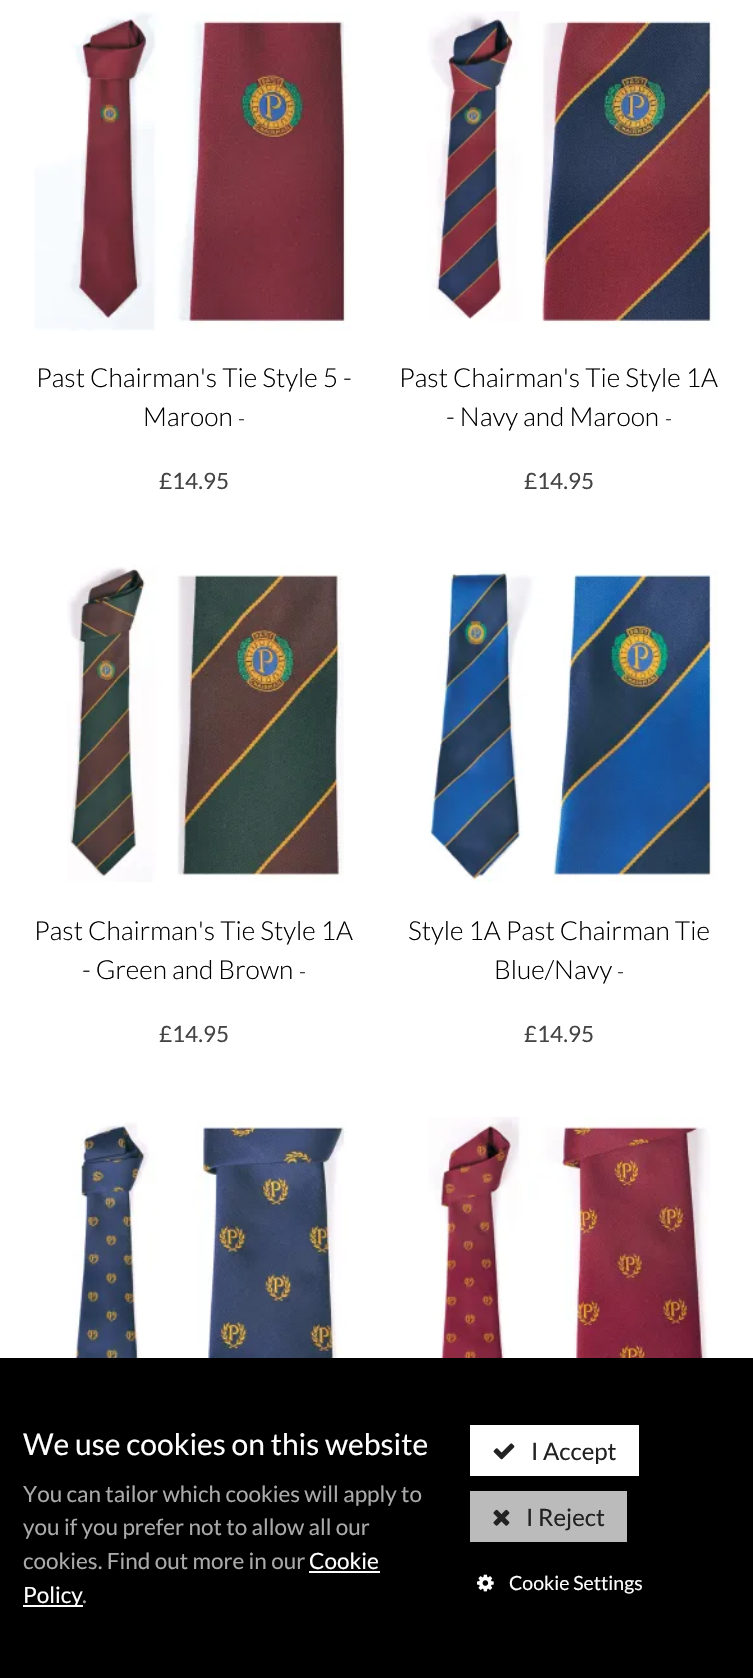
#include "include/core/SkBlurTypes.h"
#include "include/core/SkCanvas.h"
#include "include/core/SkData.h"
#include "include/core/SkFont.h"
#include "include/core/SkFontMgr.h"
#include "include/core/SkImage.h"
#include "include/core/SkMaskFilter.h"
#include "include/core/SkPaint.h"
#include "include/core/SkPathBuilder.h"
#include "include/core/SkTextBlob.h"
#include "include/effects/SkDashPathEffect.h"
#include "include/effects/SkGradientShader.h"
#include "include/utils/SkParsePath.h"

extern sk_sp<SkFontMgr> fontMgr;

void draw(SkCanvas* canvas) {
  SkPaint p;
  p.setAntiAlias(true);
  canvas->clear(SK_ColorWHITE);
  canvas->drawImageRect(SkImages::DeferredFromEncodedData(SkData::MakeFromFileName("images/1.png")), SkRect::MakeLTRB(34, 11, 351, 331), SkSamplingOptions());
  canvas->drawImageRect(SkImages::DeferredFromEncodedData(SkData::MakeFromFileName("images/2.png")), SkRect::MakeLTRB(427, 11, 718, 329), SkSamplingOptions());
  canvas->drawImageRect(SkImages::DeferredFromEncodedData(SkData::MakeFromFileName("images/3.png")), SkRect::MakeLTRB(67, 565, 344, 882), SkSamplingOptions());
  canvas->drawImageRect(SkImages::DeferredFromEncodedData(SkData::MakeFromFileName("images/4.png")), SkRect::MakeLTRB(429, 570, 718, 882), SkSamplingOptions());
  canvas->drawImageRect(SkImages::DeferredFromEncodedData(SkData::MakeFromFileName("images/5.png")), SkRect::MakeLTRB(70, 1122, 347, 1358), SkSamplingOptions());
  canvas->drawImageRect(SkImages::DeferredFromEncodedData(SkData::MakeFromFileName("images/6.png")), SkRect::MakeLTRB(428, 1117, 711, 1358), SkSamplingOptions());
  p.setColor(SK_ColorBLACK);
  canvas->drawRect(SkRect::MakeLTRB(0, 1358, 753, 1678), p);
  p.setColor(SK_ColorWHITE);
  canvas->drawRect(SkRect::MakeLTRB(470, 1425, 639, 1476), p);
  canvas->drawImageRect(SkImages::DeferredFromEncodedData(SkData::MakeFromFileName("images/7.png")), SkRect::MakeLTRB(493, 1443, 515, 1460), SkSamplingOptions());
  p.setColor(SkColorSetRGB(187, 187, 187));
  canvas->drawRect(SkRect::MakeLTRB(470, 1491, 627, 1542), p);
  canvas->drawImageRect(SkImages::DeferredFromEncodedData(SkData::MakeFromFileName("images/8.png")), SkRect::MakeLTRB(493, 1509, 510, 1526), SkSamplingOptions());
  canvas->drawImageRect(SkImages::DeferredFromEncodedData(SkData::MakeFromFileName("images/9.png")), SkRect::MakeLTRB(477, 1574, 494, 1592), SkSamplingOptions());
  p.setColor(SK_ColorWHITE);
  canvas->drawRect(SkRect::MakeLTRB(309, 1571, 380, 1573), p);
  canvas->drawRect(SkRect::MakeLTRB(23, 1605, 83, 1607), p);
  SkFont font1(fontMgr->matchFamilyStyle("Lato", SkFontStyle(300, SkFontStyle::kNormal_Width, SkFontStyle::kUpright_Slant)), 26.25f);
  font1.setSubpixel(true);
  p.setColor(SK_ColorBLACK);
  canvas->drawString("Past Chairman's Tie Style 5 -", 36, 387, font1, p);
  canvas->drawString("Maroon", 143, 426, font1, p);
  SkFont font2(fontMgr->matchFamilyStyle("Lato", SkFontStyle(300, SkFontStyle::kNormal_Width, SkFontStyle::kUpright_Slant)), 21);
  font2.setSubpixel(true);
  canvas->drawString("-", 238, 426, font2, p);
  SkFont font3(fontMgr->matchFamilyStyle("Lato", SkFontStyle::Normal()), 22.5f);
  font3.setSubpixel(true);
  p.setColor(SkColorSetRGB(68, 68, 68));
  canvas->drawString("£14.95", 159, 489, font3, p);
  p.setColor(SK_ColorBLACK);
  canvas->drawString("Past Chairman's Tie Style 1A", 399, 387, font1, p);
  canvas->drawString("- Navy and Maroon", 446, 426, font1, p);
  canvas->drawString("-", 665, 426, font2, p);
  p.setColor(SkColorSetRGB(68, 68, 68));
  canvas->drawString("£14.95", 524, 489, font3, p);
  p.setColor(SK_ColorBLACK);
  canvas->drawString("Past Chairman's Tie Style 1A", 34, 940, font1, p);
  canvas->drawString("- Green and Brown", 82, 979, font1, p);
  canvas->drawString("-", 299, 979, font2, p);
  p.setColor(SkColorSetRGB(68, 68, 68));
  canvas->drawString("£14.95", 159, 1042, font3, p);
  p.setColor(SK_ColorBLACK);
  canvas->drawString("Style 1A Past Chairman Tie", 408, 940, font1, p);
  canvas->drawString("Blue/Navy", 494, 979, font1, p);
  canvas->drawString("-", 617, 979, font2, p);
  p.setColor(SkColorSetRGB(68, 68, 68));
  canvas->drawString("£14.95", 524, 1042, font3, p);
  SkFont font4(fontMgr->matchFamilyStyle("Lato", SkFontStyle::Normal()), 30);
  font4.setSubpixel(true);
  p.setColor(SK_ColorWHITE);
  canvas->drawString("We use cookies on this website", 23, 1455, font4, p);
  SkFont font5(fontMgr->matchFamilyStyle("Lato", SkFontStyle::Normal()), 24);
  font5.setSubpixel(true);
  p.setColor(SkColorSetRGB(34, 34, 34));
  canvas->drawString("I Accept", 531, 1460, font5, p);
  canvas->drawString("I Reject", 526, 1526, font5, p);
  SkFont font6(fontMgr->matchFamilyStyle("Lato", SkFontStyle::Normal()), 19.5f);
  font6.setSubpixel(true);
  p.setColor(SK_ColorWHITE);
  canvas->drawString("Cookie Settings", 509, 1590, font6, p);
  p.setColor(SkColorSetRGB(170, 170, 170));
  canvas->drawString("You can tailor which cookies will apply to", 23, 1502, font3, p);
  canvas->drawString("you if you prefer not to allow all our", 23, 1535, font3, p);
  canvas->drawString("cookies. Find out more in our", 23, 1569, font3, p);
  p.setColor(SK_ColorWHITE);
  canvas->drawString("Cookie", 309, 1569, font3, p);
  canvas->drawString("Policy", 23, 1603, font3, p);
  p.setColor(SkColorSetRGB(170, 170, 170));
  canvas->drawString(".", 82, 1603, font3, p);
}
